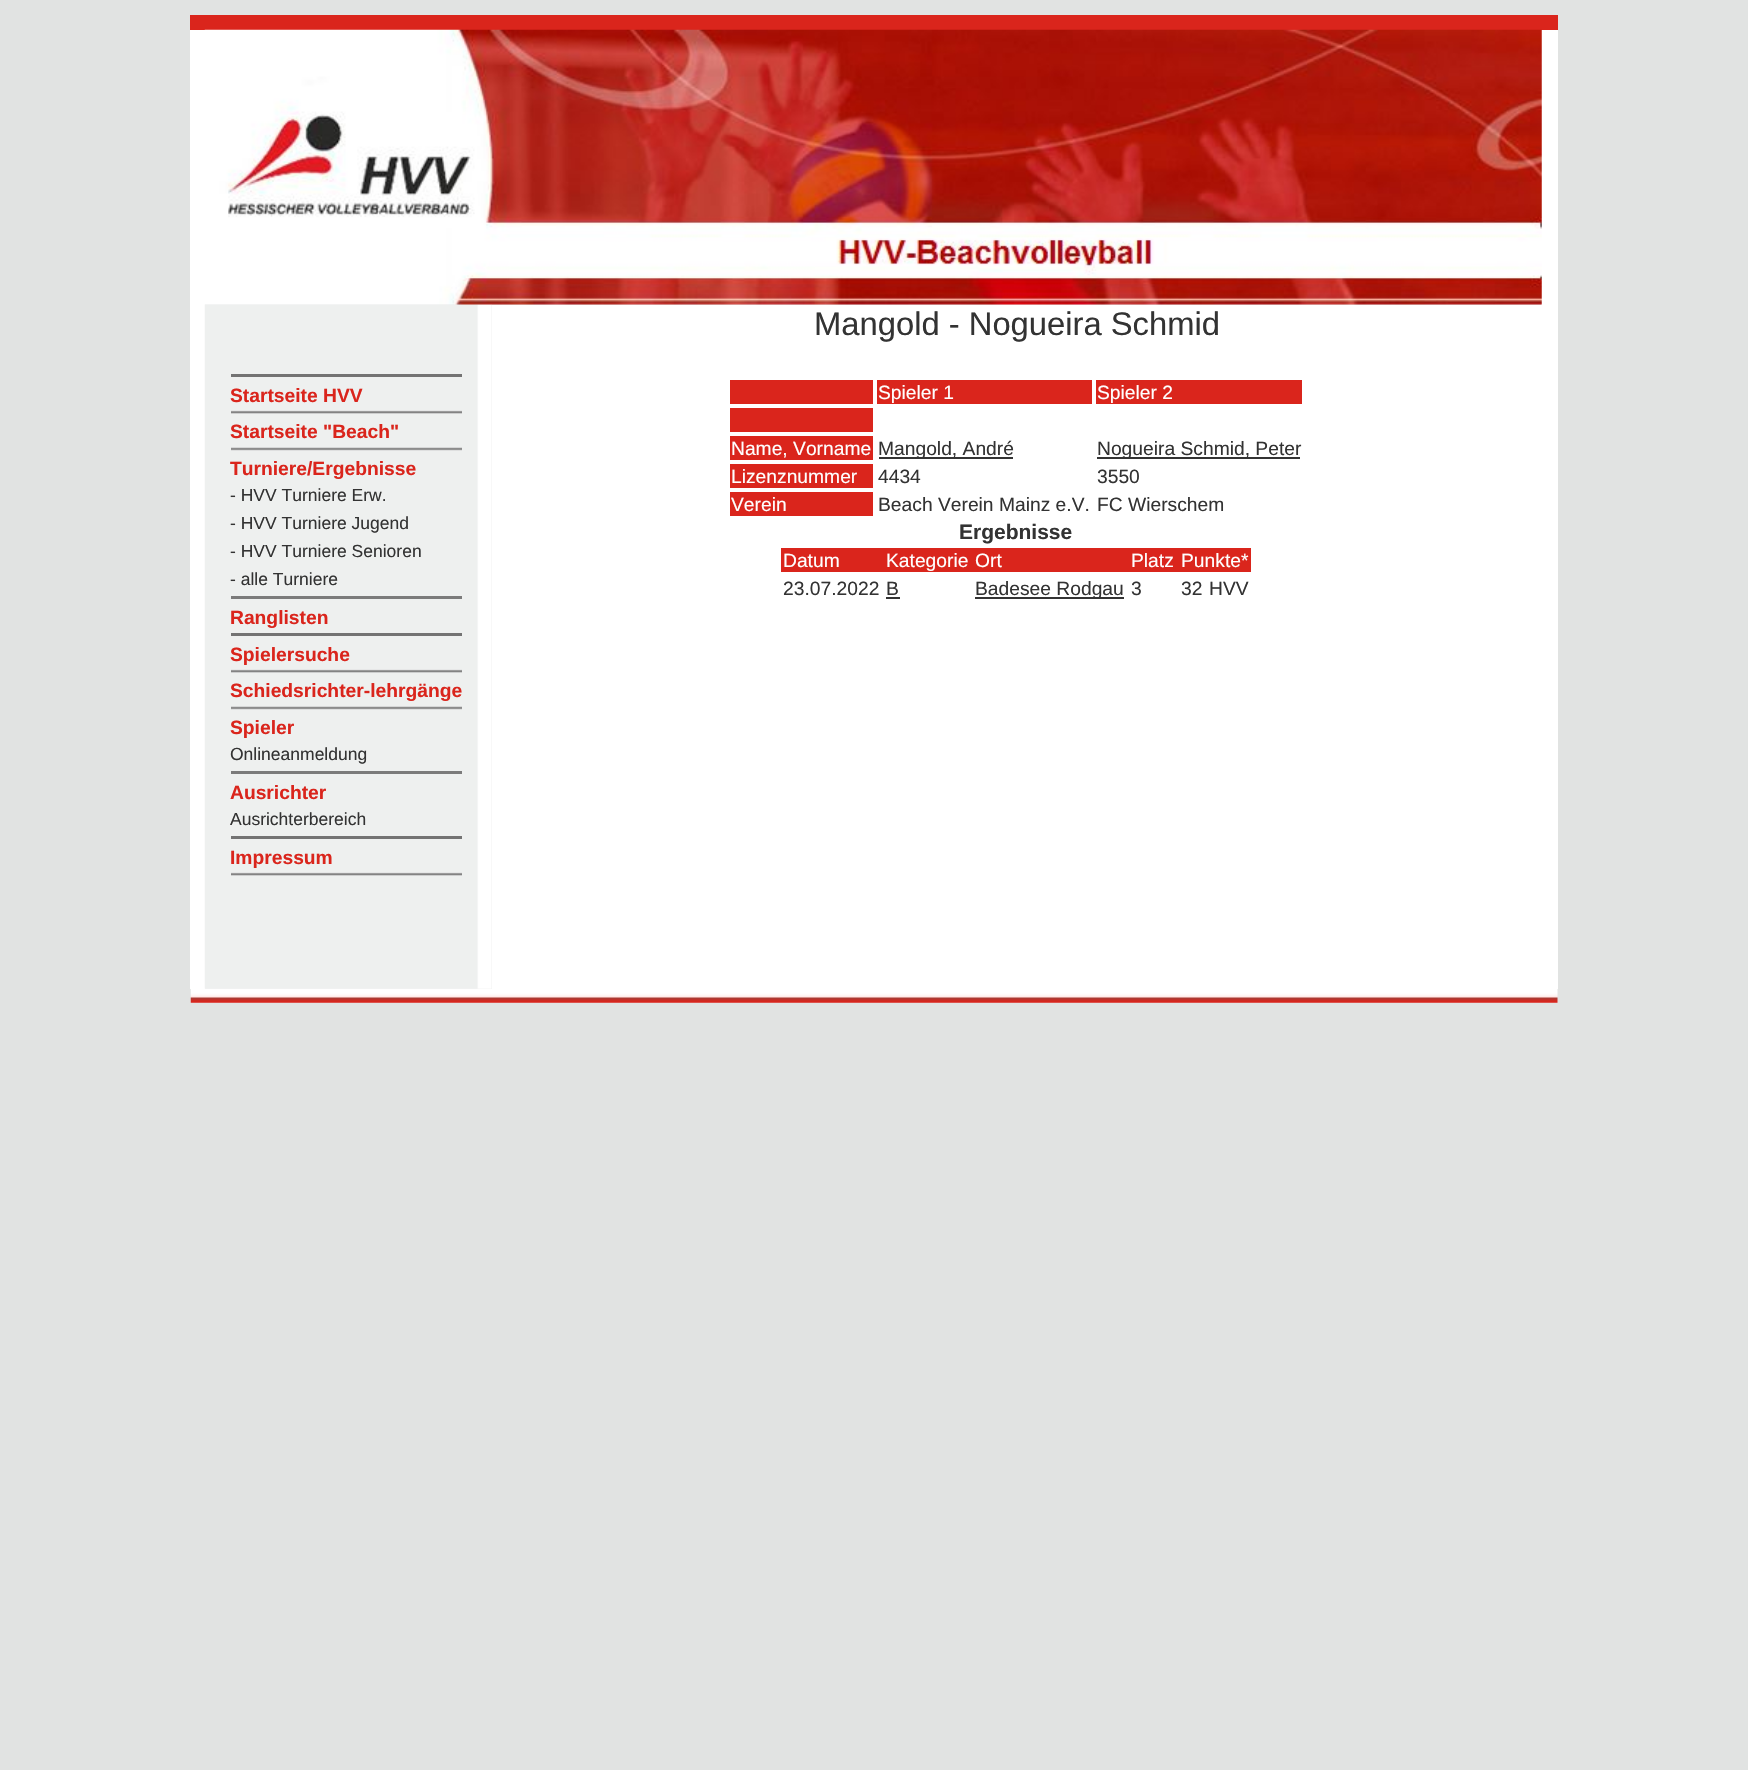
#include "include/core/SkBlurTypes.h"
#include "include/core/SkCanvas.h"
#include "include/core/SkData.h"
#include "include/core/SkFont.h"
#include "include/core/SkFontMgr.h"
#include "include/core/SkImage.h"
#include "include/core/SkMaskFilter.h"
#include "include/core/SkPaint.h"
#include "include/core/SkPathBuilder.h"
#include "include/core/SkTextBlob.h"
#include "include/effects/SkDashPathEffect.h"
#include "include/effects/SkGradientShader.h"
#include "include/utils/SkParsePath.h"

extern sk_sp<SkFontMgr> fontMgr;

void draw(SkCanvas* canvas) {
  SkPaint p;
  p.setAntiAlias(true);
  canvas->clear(SkColorSetRGB(225, 227, 226));
  p.setColor(SkColorSetRGB(218, 37, 28));
  canvas->drawRect(SkRect::MakeLTRB(190, 15, 1558, 30), p);
  p.setColor(SK_ColorWHITE);
  canvas->drawRect(SkRect::MakeLTRB(190, 30, 205, 989), p);
  canvas->drawRect(SkRect::MakeLTRB(1541, 30, 1558, 989), p);
  canvas->drawImageRect(SkImages::DeferredFromEncodedData(SkData::MakeFromFileName("images/2.png")), SkRect::MakeLTRB(204, 304, 492, 989), SkSamplingOptions());
  canvas->drawImageRect(SkImages::DeferredFromEncodedData(SkData::MakeFromFileName("images/1.png")), SkRect::MakeLTRB(204, 29, 1542, 305), SkSamplingOptions());
  p.setColor(SkColorSetRGB(115, 115, 115));
  canvas->drawRect(SkRect::MakeLTRB(231, 374, 462, 377), p);
  canvas->drawImageRect(SkImages::DeferredFromEncodedData(SkData::MakeFromFileName("images/3.png")), SkRect::MakeLTRB(231, 410, 462, 414), SkSamplingOptions());
  canvas->drawImageRect(SkImages::DeferredFromEncodedData(SkData::MakeFromFileName("images/4.png")), SkRect::MakeLTRB(231, 447, 462, 451), SkSamplingOptions());
  p.setColor(SkColorSetRGB(123, 123, 123));
  canvas->drawRect(SkRect::MakeLTRB(231, 596, 462, 599), p);
  p.setColor(SkColorSetRGB(115, 115, 115));
  canvas->drawRect(SkRect::MakeLTRB(231, 633, 462, 636), p);
  canvas->drawImageRect(SkImages::DeferredFromEncodedData(SkData::MakeFromFileName("images/3.png")), SkRect::MakeLTRB(231, 669, 462, 673), SkSamplingOptions());
  canvas->drawImageRect(SkImages::DeferredFromEncodedData(SkData::MakeFromFileName("images/4.png")), SkRect::MakeLTRB(231, 706, 462, 710), SkSamplingOptions());
  p.setColor(SkColorSetRGB(123, 123, 123));
  canvas->drawRect(SkRect::MakeLTRB(231, 771, 462, 774), p);
  p.setColor(SkColorSetRGB(115, 115, 115));
  canvas->drawRect(SkRect::MakeLTRB(231, 836, 462, 839), p);
  canvas->drawImageRect(SkImages::DeferredFromEncodedData(SkData::MakeFromFileName("images/3.png")), SkRect::MakeLTRB(231, 872, 462, 876), SkSamplingOptions());
  p.setColor(SK_ColorWHITE);
  canvas->drawRect(SkRect::MakeLTRB(492, 305, 1541, 989), p);
  p.setColor(SkColorSetRGB(218, 37, 28));
  canvas->drawRect(SkRect::MakeLTRB(730, 380, 873, 404), p);
  canvas->drawRect(SkRect::MakeLTRB(877, 380, 1092, 404), p);
  canvas->drawRect(SkRect::MakeLTRB(1096, 380, 1302, 404), p);
  canvas->drawRect(SkRect::MakeLTRB(730, 408, 873, 432), p);
  canvas->drawRect(SkRect::MakeLTRB(730, 436, 873, 460), p);
  p.setColor(SkColorSetRGB(51, 51, 51));
  canvas->drawRect(SkRect::MakeLTRB(879, 457, 1013, 459), p);
  canvas->drawRect(SkRect::MakeLTRB(1097, 457, 1300, 459), p);
  p.setColor(SkColorSetRGB(218, 37, 28));
  canvas->drawRect(SkRect::MakeLTRB(730, 464, 873, 488), p);
  canvas->drawRect(SkRect::MakeLTRB(730, 492, 873, 516), p);
  canvas->drawRect(SkRect::MakeLTRB(781, 548, 1251, 572), p);
  p.setColor(SkColorSetRGB(51, 51, 51));
  canvas->drawRect(SkRect::MakeLTRB(886, 597, 900, 599), p);
  canvas->drawRect(SkRect::MakeLTRB(975, 597, 1124, 599), p);
  canvas->drawImageRect(SkImages::DeferredFromEncodedData(SkData::MakeFromFileName("images/5.png")), SkRect::MakeLTRB(190, 988, 1558, 1003), SkSamplingOptions());
  SkFont font1(fontMgr->matchFamilyStyle("Liberation Sans", SkFontStyle::Bold()), 19.25f);
  font1.setSubpixel(true);
  p.setColor(SkColorSetRGB(218, 37, 28));
  canvas->drawString("Startseite HVV", 230, 402, font1, p);
  canvas->drawString("Startseite \"Beach\"", 230, 438, font1, p);
  canvas->drawString("Turniere/Ergebnisse", 230, 475, font1, p);
  SkFont font2(fontMgr->matchFamilyStyle("Liberation Sans", SkFontStyle::Normal()), 17.5f);
  font2.setSubpixel(true);
  p.setColor(SkColorSetRGB(51, 51, 51));
  canvas->drawString("- HVV Turniere Erw.", 230, 501, font2, p);
  canvas->drawString("- HVV Turniere Jugend", 230, 529, font2, p);
  canvas->drawString("- HVV Turniere Senioren", 230, 557, font2, p);
  canvas->drawString("- alle Turniere", 230, 585, font2, p);
  p.setColor(SkColorSetRGB(218, 37, 28));
  canvas->drawString("Ranglisten", 230, 624, font1, p);
  canvas->drawString("Spielersuche", 230, 661, font1, p);
  canvas->drawString("Schiedsrichter-lehrgänge", 230, 697, font1, p);
  canvas->drawString("Spieler", 230, 734, font1, p);
  p.setColor(SkColorSetRGB(51, 51, 51));
  canvas->drawString("Onlineanmeldung", 230, 760, font2, p);
  p.setColor(SkColorSetRGB(218, 37, 28));
  canvas->drawString("Ausrichter", 230, 799, font1, p);
  p.setColor(SkColorSetRGB(51, 51, 51));
  canvas->drawString("Ausrichterbereich", 230, 825, font2, p);
  p.setColor(SkColorSetRGB(218, 37, 28));
  canvas->drawString("Impressum", 230, 864, font1, p);
  SkFont font3(fontMgr->matchFamilyStyle("Liberation Sans", SkFontStyle::Normal()), 32.75f);
  font3.setSubpixel(true);
  p.setColor(SkColorSetRGB(51, 51, 51));
  canvas->drawString("Mangold - Nogueira Schmid", 814, 335, font3, p);
  SkFont font4(fontMgr->matchFamilyStyle("Liberation Sans", SkFontStyle::Normal()), 19.25f);
  font4.setSubpixel(true);
  p.setColor(SK_ColorWHITE);
  canvas->drawString("Spieler 1", 878, 399, font4, p);
  canvas->drawString("Spieler 2", 1097, 399, font4, p);
  canvas->drawString("Name, Vorname", 731, 455, font4, p);
  p.setColor(SkColorSetRGB(51, 51, 51));
  canvas->drawString("Mangold, André", 878, 455, font4, p);
  canvas->drawString("Nogueira Schmid, Peter", 1097, 455, font4, p);
  p.setColor(SK_ColorWHITE);
  canvas->drawString("Lizenznummer", 731, 483, font4, p);
  p.setColor(SkColorSetRGB(51, 51, 51));
  canvas->drawString("4434", 878, 483, font4, p);
  canvas->drawString("3550", 1097, 483, font4, p);
  p.setColor(SK_ColorWHITE);
  canvas->drawString("Verein", 731, 511, font4, p);
  p.setColor(SkColorSetRGB(51, 51, 51));
  canvas->drawString("Beach Verein Mainz e.V.", 878, 511, font4, p);
  canvas->drawString("FC Wierschem", 1097, 511, font4, p);
  SkFont font5(fontMgr->matchFamilyStyle("Liberation Sans", SkFontStyle::Bold()), 21);
  font5.setSubpixel(true);
  canvas->drawString("Ergebnisse", 959, 539, font5, p);
  p.setColor(SK_ColorWHITE);
  canvas->drawString("Datum", 783, 567, font4, p);
  canvas->drawString("Kategorie", 886, 567, font4, p);
  canvas->drawString("Ort", 975, 567, font4, p);
  canvas->drawString("Platz", 1131, 567, font4, p);
  canvas->drawString("Punkte*", 1181, 567, font4, p);
  p.setColor(SkColorSetRGB(51, 51, 51));
  canvas->drawString("23.07.2022", 783, 595, font4, p);
  canvas->drawString("B", 886, 595, font4, p);
  canvas->drawString("Badesee Rodgau", 975, 595, font4, p);
  canvas->drawString("3", 1131, 595, font4, p);
  canvas->drawString("32", 1181, 595, font4, p);
  canvas->drawString("HVV", 1209, 595, font4, p);
}
